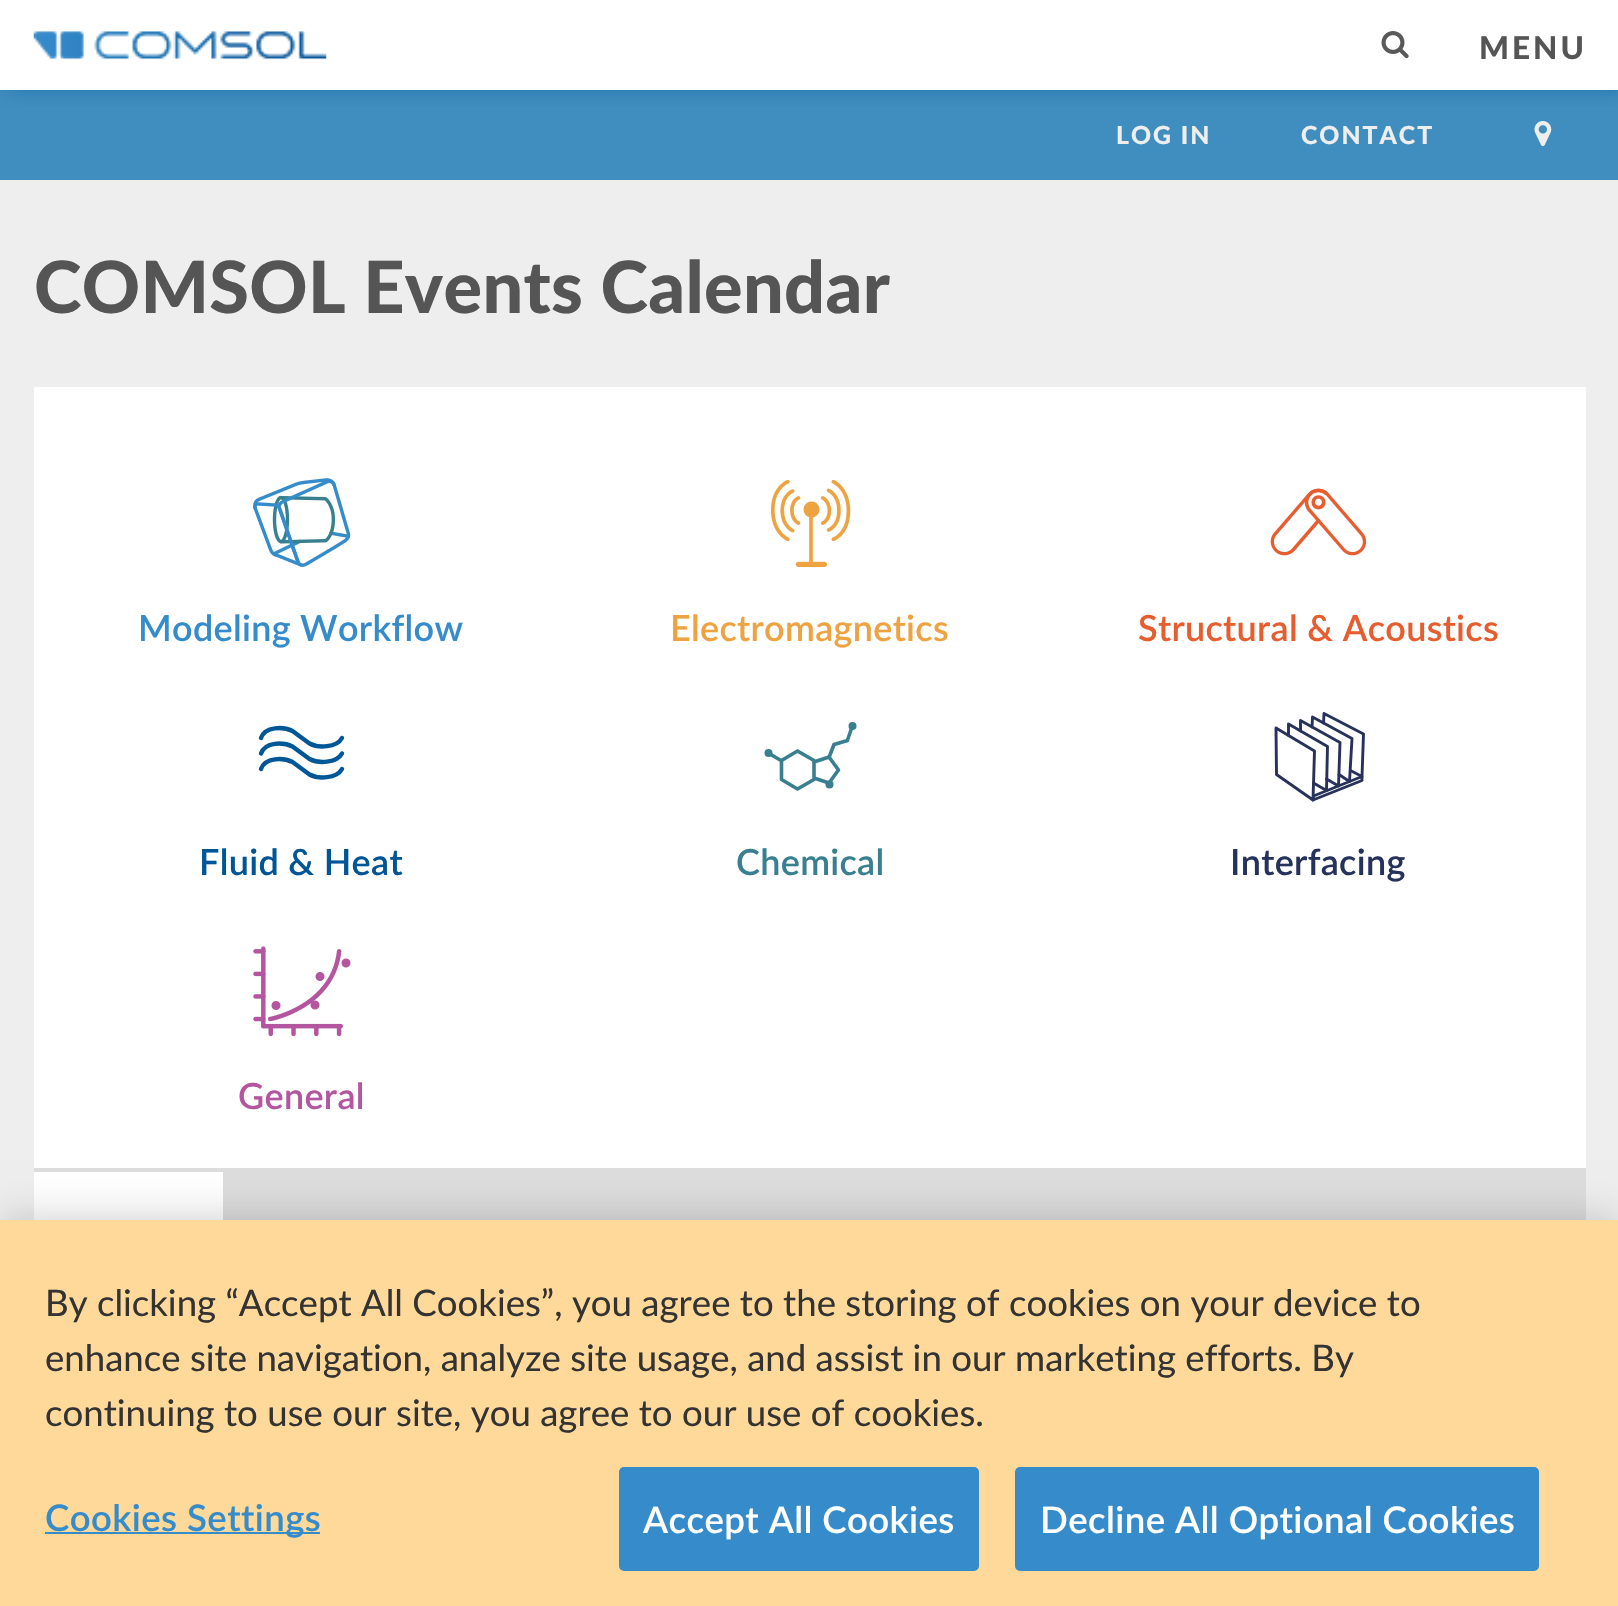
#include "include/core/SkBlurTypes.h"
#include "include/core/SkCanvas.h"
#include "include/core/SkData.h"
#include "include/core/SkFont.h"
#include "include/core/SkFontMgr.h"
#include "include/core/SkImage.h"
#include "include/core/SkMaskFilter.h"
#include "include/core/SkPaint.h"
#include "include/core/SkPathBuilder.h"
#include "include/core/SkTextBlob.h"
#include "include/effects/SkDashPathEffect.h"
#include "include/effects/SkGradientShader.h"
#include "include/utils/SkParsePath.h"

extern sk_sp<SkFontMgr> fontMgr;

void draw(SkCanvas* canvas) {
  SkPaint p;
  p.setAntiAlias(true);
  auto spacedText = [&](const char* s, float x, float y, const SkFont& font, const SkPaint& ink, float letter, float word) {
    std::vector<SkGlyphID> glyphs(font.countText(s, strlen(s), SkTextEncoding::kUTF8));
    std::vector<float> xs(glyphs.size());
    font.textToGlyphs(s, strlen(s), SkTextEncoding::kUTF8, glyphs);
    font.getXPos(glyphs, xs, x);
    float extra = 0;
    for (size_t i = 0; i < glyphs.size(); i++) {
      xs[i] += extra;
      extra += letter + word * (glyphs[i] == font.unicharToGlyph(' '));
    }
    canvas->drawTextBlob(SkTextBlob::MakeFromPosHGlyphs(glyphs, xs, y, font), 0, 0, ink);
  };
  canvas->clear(SK_ColorWHITE);
  p.setColor(SkColorSetRGB(64, 142, 191));
  canvas->drawRect(SkRect::MakeLTRB(0, 90, 1618, 180), p);
  canvas->save();
  canvas->clipRect(SkRect::MakeLTRB(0, 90, 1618, 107));
  p.setColor(SkColorSetRGB(0, 85, 150));
  p.setMaskFilter(SkMaskFilter::MakeBlur(kNormal_SkBlurStyle, 12.5f));
  canvas->drawRect(SkRect::MakeLTRB(7, -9, 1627, 81), p);
  p.setMaskFilter(nullptr);
  canvas->restore();
  canvas->drawImageRect(SkImages::DeferredFromEncodedData(SkData::MakeFromFileName("images/1.png")), SkRect::MakeLTRB(33, 31, 327, 60), SkSamplingOptions());
  canvas->drawImageRect(SkImages::DeferredFromEncodedData(SkData::MakeFromFileName("images/2.png")), SkRect::MakeLTRB(1381, 31, 1409, 59), SkSamplingOptions());
  canvas->drawImageRect(SkImages::DeferredFromEncodedData(SkData::MakeFromFileName("images/3.png")), SkRect::MakeLTRB(1534, 121, 1552, 147), SkSamplingOptions());
  p.setColor(SkColorSetRGB(238, 238, 238));
  canvas->drawRect(SkRect::MakeLTRB(0, 180, 1618, 1220), p);
  p.setColor(SK_ColorWHITE);
  canvas->drawRect(SkRect::MakeLTRB(34, 387, 1586, 1168), p);
  canvas->drawImageRect(SkImages::DeferredFromEncodedData(SkData::MakeFromFileName("images/4.png")), SkRect::MakeLTRB(253, 478, 351, 567), SkSamplingOptions());
  canvas->drawImageRect(SkImages::DeferredFromEncodedData(SkData::MakeFromFileName("images/5.png")), SkRect::MakeLTRB(770, 479, 851, 567), SkSamplingOptions());
  canvas->drawImageRect(SkImages::DeferredFromEncodedData(SkData::MakeFromFileName("images/6.png")), SkRect::MakeLTRB(1270, 488, 1367, 556), SkSamplingOptions());
  p.setStyle(SkPaint::kStroke_Style);
  p.setStrokeWidth(4.4f);
  p.setStrokeCap(SkPaint::kRound_Cap);
  p.setStrokeJoin(SkPaint::kRound_Join);
  p.setColor(SkColorSetRGB(0, 87, 152));
  canvas->drawPath(SkPathBuilder().moveTo(261, 769).cubicTo(265, 757, 283.5f, 757.5f, 292.5f, 762).lineTo(309.5f, 774.5f).cubicTo(318, 779, 336.5f, 779, 342, 769).detach(), p);
  canvas->drawPath(SkPathBuilder().moveTo(261, 738).cubicTo(265, 726, 283.5f, 726.5f, 292.5f, 731).lineTo(309.5f, 743.5f).cubicTo(318, 748, 336.5f, 748, 342, 738).detach(), p);
  canvas->drawPath(SkPathBuilder().moveTo(261, 753.5f).cubicTo(265, 741.5f, 283.5f, 742, 292.5f, 746.5f).lineTo(309.5f, 759).cubicTo(318, 763.5f, 336.5f, 763.5f, 342, 753.5f).detach(), p);
  p.setStrokeWidth(3.6f);
  p.setColor(SkColorSetRGB(56, 128, 144));
  canvas->drawPath(SkPathBuilder().moveTo(814, 779.5f).lineTo(814, 760.5f).lineTo(797.5f, 751).lineTo(781.5f, 760.5f).lineTo(781.5f, 779.5f).lineTo(797.5f, 789).close().moveTo(838.5f, 770).lineTo(829, 783).lineTo(814, 778).lineTo(814, 762).lineTo(829, 757).close().detach(), p);
  canvas->drawPath(SkPathBuilder().moveTo(781, 760.5f).lineTo(769, 753.5f).detach(), p);
  canvas->drawPath(SkPathBuilder().moveTo(834, 744.5f).lineTo(829, 757.5f).moveTo(852, 727).lineTo(847.5f, 740).moveTo(847.5f, 740.5f).lineTo(834, 744.5f).detach(), p);
  p.setStyle(SkPaint::kFill_Style);
  canvas->drawCircle(829.5f, 784.5f, 4, p);
  canvas->drawCircle(768.5f, 753, 4, p);
  canvas->drawCircle(852.5f, 726, 4, p);
  p.setStyle(SkPaint::kStroke_Style);
  p.setStrokeWidth(2.9f);
  p.setColor(SkColorSetRGB(39, 50, 91));
  canvas->drawPath(SkPathBuilder().moveTo(1276.5f, 774.5f).lineTo(1276, 728).lineTo(1314.5f, 751).lineTo(1313, 800).close().detach(), p);
  canvas->drawPath(SkPathBuilder().moveTo(1362, 780.5f).lineTo(1362, 776.5f).lineTo(1313.5f, 796).lineTo(1313, 800).close().detach(), p);
  canvas->drawPath(SkPathBuilder().moveTo(1288.5f, 735.5f).lineTo(1288.5f, 724).lineTo(1327.5f, 746.5f).lineTo(1326.5f, 790.5f).lineTo(1313.5f, 783).detach(), p);
  canvas->drawPath(SkPathBuilder().moveTo(1300.5f, 731).lineTo(1300.5f, 720.5f).lineTo(1340, 742.5f).lineTo(1338.5f, 786).lineTo(1326.5f, 779).detach(), p);
  canvas->drawPath(SkPathBuilder().moveTo(1312, 727).lineTo(1312.5f, 717).lineTo(1352, 738.5f).lineTo(1349.5f, 781.5f).lineTo(1339, 774.5f).detach(), p);
  canvas->drawPath(SkPathBuilder().moveTo(1323.5f, 723).lineTo(1324, 713.5f).lineTo(1363.5f, 734).lineTo(1362, 776.5f).lineTo(1350.5f, 770.5f).detach(), p);
  canvas->drawImageRect(SkImages::DeferredFromEncodedData(SkData::MakeFromFileName("images/7.png")), SkRect::MakeLTRB(253, 946, 351, 1037), SkSamplingOptions());
  p.setStyle(SkPaint::kFill_Style);
  p.setColor(SkColorSetRGB(221, 221, 221));
  canvas->drawRect(SkRect::MakeLTRB(34, 1168, 1586, 1220), p);
  p.setColor(SK_ColorWHITE);
  canvas->drawRect(SkRect::MakeLTRB(34, 1172, 223, 1220), p);
  p.setColor(SkColorSetARGB(51, 0, 0, 0));
  p.setMaskFilter(SkMaskFilter::MakeBlur(kNormal_SkBlurStyle, 20));
  canvas->drawRect(SkRect::MakeLTRB(0, 1220, 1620, 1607), p);
  p.setMaskFilter(nullptr);
  p.setColor(SkColorSetRGB(255, 217, 153));
  canvas->drawRect(SkRect::MakeLTRB(0, 1220, 1618, 1606), p);
  p.setColor(SkColorSetRGB(54, 140, 203));
  canvas->drawRect(SkRect::MakeLTRB(45, 1532, 320, 1534), p);
  canvas->drawRoundRect(SkRect::MakeLTRB(620, 1468, 978, 1570), 4, 4, p);
  p.setStyle(SkPaint::kStroke_Style);
  p.setStrokeWidth(2);
  p.setStrokeCap(SkPaint::kButt_Cap);
  p.setStrokeJoin(SkPaint::kMiter_Join);
  canvas->drawRoundRect(SkRect::MakeLTRB(620, 1468, 978, 1570), 4, 4, p);
  p.setStyle(SkPaint::kFill_Style);
  canvas->drawRoundRect(SkRect::MakeLTRB(1016, 1468, 1538, 1570), 4, 4, p);
  p.setStyle(SkPaint::kStroke_Style);
  canvas->drawRoundRect(SkRect::MakeLTRB(1016, 1468, 1538, 1570), 4, 4, p);
  SkFont font1(fontMgr->matchFamilyStyle("Lato", SkFontStyle(900, SkFontStyle::kNormal_Width, SkFontStyle::kUpright_Slant)), 31.5f);
  font1.setSubpixel(true);
  p.setStyle(SkPaint::kFill_Style);
  p.setColor(SkColorSetRGB(85, 85, 85));
  spacedText("MENU", 1479, 59, font1, p, 3, 0);
  SkFont font2(fontMgr->matchFamilyStyle("Lato", SkFontStyle(900, SkFontStyle::kNormal_Width, SkFontStyle::kUpright_Slant)), 24.75f);
  font2.setSubpixel(true);
  p.setColor(SkColorSetRGB(238, 238, 238));
  spacedText("LOG IN", 1116, 144, font2, p, 2, 0);
  spacedText("CONTACT", 1301, 144, font2, p, 2, 0);
  SkFont font3(fontMgr->matchFamilyStyle("Lato", SkFontStyle(900, SkFontStyle::kNormal_Width, SkFontStyle::kUpright_Slant)), 72);
  font3.setSubpixel(true);
  p.setColor(SkColorSetRGB(85, 85, 85));
  spacedText("COMSOL Events Calendar", 34, 313, font3, p, 0.3f, 0);
  SkFont font4(fontMgr->matchFamilyStyle("Lato", SkFontStyle(600, SkFontStyle::kNormal_Width, SkFontStyle::kUpright_Slant)), 36);
  font4.setSubpixel(true);
  p.setColor(SkColorSetRGB(54, 140, 203));
  spacedText("Modeling Workflow", 138, 641, font4, p, 0.3f, 0);
  p.setColor(SkColorSetRGB(238, 163, 66));
  spacedText("Electromagnetics", 670, 641, font4, p, 0.3f, 0);
  p.setColor(SkColorSetRGB(230, 94, 48));
  spacedText("Structural & Acoustics", 1138, 641, font4, p, 0.3f, 0);
  p.setColor(SkColorSetRGB(0, 85, 150));
  spacedText("Fluid & Heat", 199, 875, font4, p, 0.3f, 0);
  p.setColor(SkColorSetRGB(56, 128, 144));
  spacedText("Chemical", 736, 875, font4, p, 0.3f, 0);
  p.setColor(SkColorSetRGB(37, 50, 91));
  spacedText("Interfacing", 1230, 875, font4, p, 0.3f, 0);
  p.setColor(SkColorSetRGB(180, 85, 160));
  spacedText("General", 238, 1109, font4, p, 0.3f, 0);
  SkFont font5(fontMgr->matchFamilyStyle("Lato", SkFontStyle::Normal()), 36.6f);
  font5.setSubpixel(true);
  p.setColor(SkColorSetRGB(51, 51, 51));
  canvas->drawString("By clicking “Accept All Cookies”, you agree to the storing of cookies on your device to", 45, 1316, font5, p);
  canvas->drawString("enhance site navigation, analyze site usage, and assist in our marketing efforts. By", 45, 1371, font5, p);
  canvas->drawString("continuing to use our site, you agree to our use of cookies.", 45, 1426, font5, p);
  SkFont font6(fontMgr->matchFamilyStyle("Lato", SkFontStyle(600, SkFontStyle::kNormal_Width, SkFontStyle::kUpright_Slant)), 36.6f);
  font6.setSubpixel(true);
  p.setColor(SkColorSetRGB(54, 140, 203));
  spacedText("Cookies Settings", 45, 1531, font6, p, 0.4f, 0);
  p.setColor(SK_ColorWHITE);
  spacedText("Accept All Cookies", 643, 1533, font6, p, 0.4f, 0);
  spacedText("Decline All Optional Cookies", 1040, 1533, font6, p, 0.4f, 0);
}
